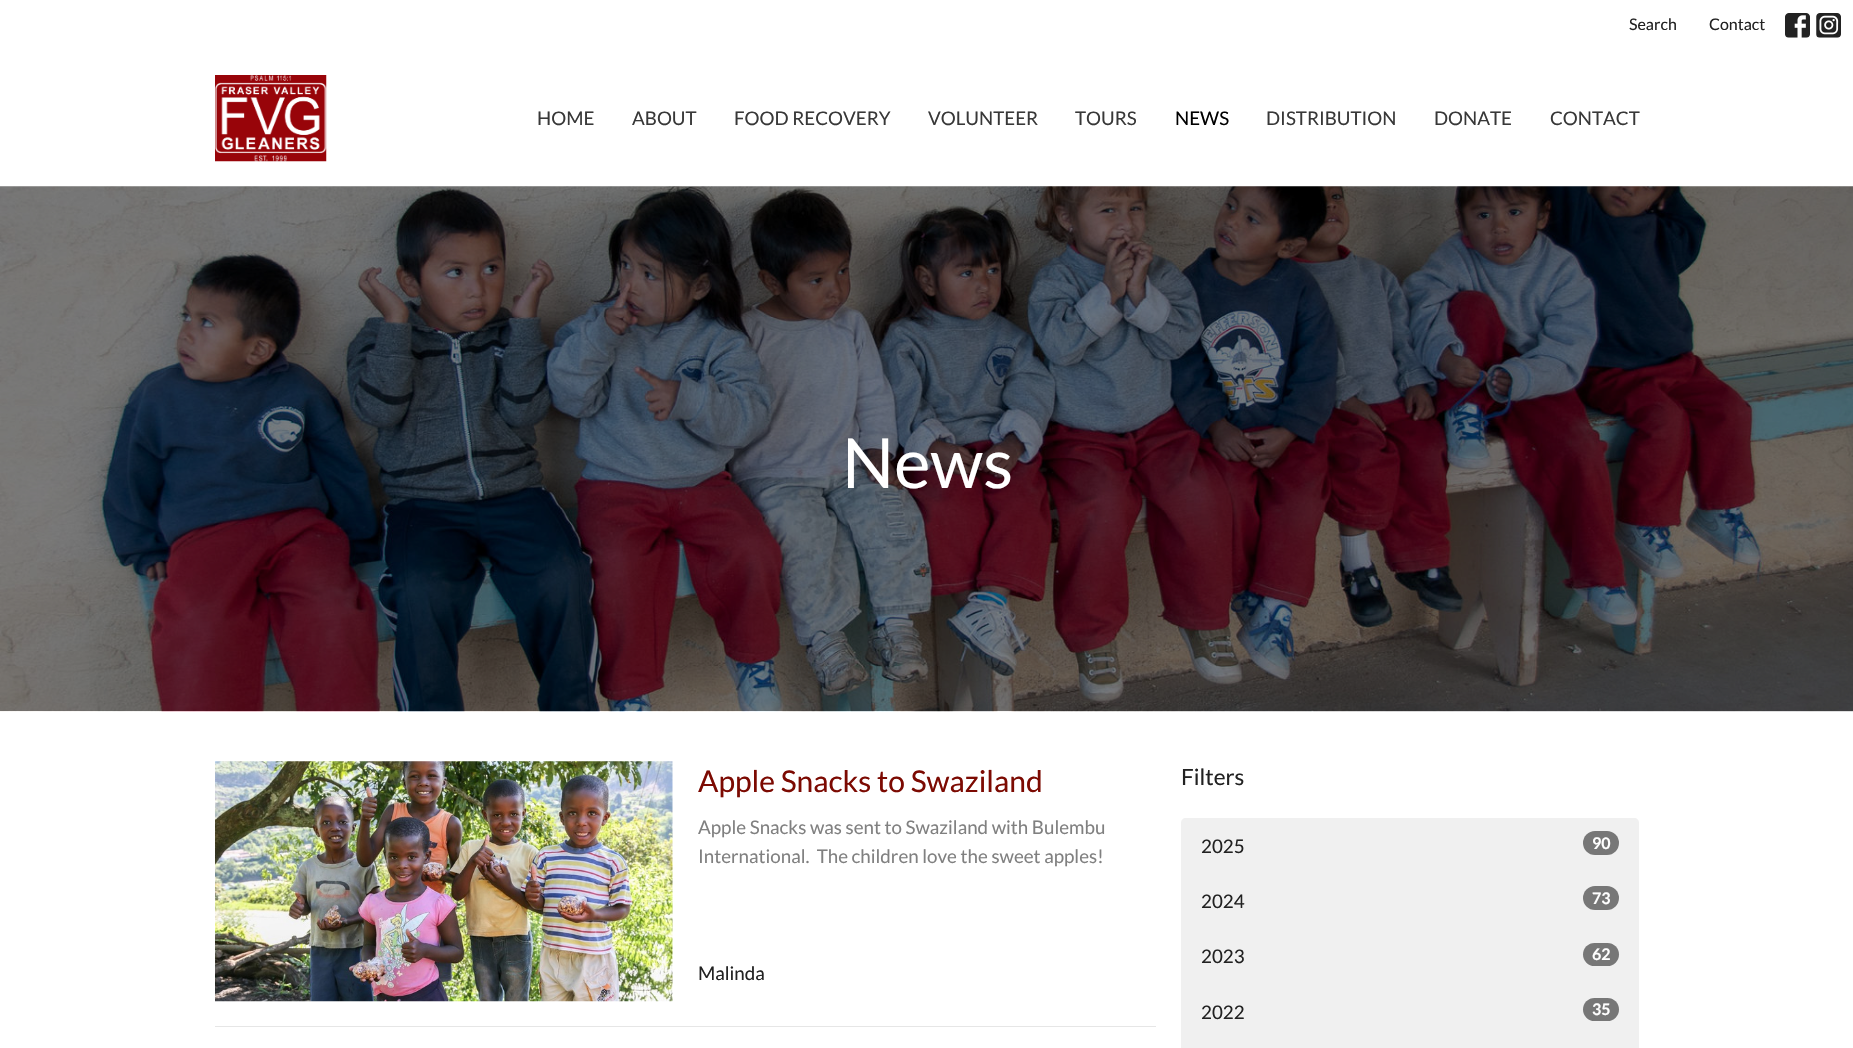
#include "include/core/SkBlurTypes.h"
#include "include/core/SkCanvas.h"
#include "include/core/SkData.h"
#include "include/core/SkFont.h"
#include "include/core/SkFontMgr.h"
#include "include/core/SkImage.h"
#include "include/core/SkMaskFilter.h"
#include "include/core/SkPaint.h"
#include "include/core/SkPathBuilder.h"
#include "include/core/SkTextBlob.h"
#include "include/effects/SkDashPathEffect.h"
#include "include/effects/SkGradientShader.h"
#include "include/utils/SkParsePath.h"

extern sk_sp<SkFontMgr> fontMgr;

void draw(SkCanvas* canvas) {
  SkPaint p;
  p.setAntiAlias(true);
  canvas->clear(SK_ColorWHITE);
  canvas->drawImageRect(SkImages::DeferredFromEncodedData(SkData::MakeFromFileName("images/1.png")), SkRect::MakeLTRB(1785, 13, 1810, 38), SkSamplingOptions());
  canvas->drawImageRect(SkImages::DeferredFromEncodedData(SkData::MakeFromFileName("images/2.png")), SkRect::MakeLTRB(1816, 13, 1841, 38), SkSamplingOptions());
  canvas->drawImageRect(SkImages::DeferredFromEncodedData(SkData::MakeFromFileName("images/3.png")), SkRect::MakeLTRB(215, 75, 327, 162), SkSamplingOptions());
  canvas->drawImageRect(SkImages::DeferredFromEncodedData(SkData::MakeFromFileName("images/4.png")), SkRect::MakeLTRB(0, 186, 1853, 712), SkSamplingOptions());
  p.setColor(SkColorSetRGB(230, 230, 230));
  canvas->drawRect(SkRect::MakeLTRB(215, 1026, 1156, 1027), p);
  canvas->drawImageRect(SkImages::DeferredFromEncodedData(SkData::MakeFromFileName("images/5.png")), SkRect::MakeLTRB(215, 761, 673, 1002), SkSamplingOptions());
  p.setColor(SkColorSetRGB(240, 240, 240));
  canvas->drawPath(SkPathBuilder().moveTo(1186, 818).lineTo(1634, 818).cubicTo(1637, 818, 1639, 820, 1639, 823).lineTo(1639, 874).lineTo(1181, 874).lineTo(1181, 823).cubicTo(1181, 820, 1183, 818, 1186, 818).close().detach(), p);
  p.setColor(SkColorSetRGB(119, 119, 119));
  canvas->drawRoundRect(SkRect::MakeLTRB(1583, 831, 1619, 855), 12, 12, p);
  p.setColor(SkColorSetRGB(240, 240, 240));
  canvas->drawRect(SkRect::MakeLTRB(1181, 874, 1639, 1048), p);
  p.setColor(SkColorSetRGB(119, 119, 119));
  canvas->drawRoundRect(SkRect::MakeLTRB(1583, 886, 1619, 910), 12, 12, p);
  canvas->drawRoundRect(SkRect::MakeLTRB(1583, 943, 1619, 966), 11.5f, 11.5f, p);
  canvas->drawRoundRect(SkRect::MakeLTRB(1583, 998, 1619, 1021), 11.5f, 11.5f, p);
  SkFont font1(fontMgr->matchFamilyStyle("Lato", SkFontStyle::Normal()), 16);
  font1.setSubpixel(true);
  p.setColor(SkColorSetRGB(34, 34, 34));
  canvas->drawString("Search", 1629, 30, font1, p);
  canvas->drawString("Contact", 1709, 30, font1, p);
  SkFont font2(fontMgr->matchFamilyStyle("Lato", SkFontStyle::Normal()), 18.75f);
  font2.setSubpixel(true);
  p.setColor(SkColorSetRGB(56, 56, 56));
  canvas->drawString("HOME", 537, 125, font2, p);
  canvas->drawString("ABOUT", 632, 125, font2, p);
  canvas->drawString("FOOD RECOVERY", 734, 125, font2, p);
  canvas->drawString("VOLUNTEER", 928, 125, font2, p);
  canvas->drawString("TOURS", 1075, 125, font2, p);
  p.setColor(SK_ColorBLACK);
  canvas->drawString("NEWS", 1175, 125, font2, p);
  p.setColor(SkColorSetRGB(56, 56, 56));
  canvas->drawString("DISTRIBUTION", 1266, 125, font2, p);
  canvas->drawString("DONATE", 1434, 125, font2, p);
  canvas->drawString("CONTACT", 1550, 125, font2, p);
  SkFont font3(fontMgr->matchFamilyStyle("Lato", SkFontStyle::Normal()), 69);
  font3.setSubpixel(true);
  p.setColor(SK_ColorWHITE);
  canvas->drawString("News", 842, 488, font3, p);
  SkFont font4(fontMgr->matchFamilyStyle("Lato", SkFontStyle::Normal()), 30);
  font4.setSubpixel(true);
  p.setColor(SkColorSetRGB(124, 10, 2));
  canvas->drawString("Apple Snacks to Swaziland", 698, 792, font4, p);
  p.setColor(SkColorSetRGB(128, 128, 128));
  canvas->drawString("Apple Snacks was sent to Swaziland with Bulembu", 698, 834, font2, p);
  canvas->drawString("International.  The children love the sweet apples!", 698, 863, font2, p);
  p.setColor(SkColorSetRGB(34, 34, 34));
  canvas->drawString("Malinda", 698, 980, font2, p);
  SkFont font5(fontMgr->matchFamilyStyle("Lato", SkFontStyle::Normal()), 22.5f);
  font5.setSubpixel(true);
  canvas->drawString("Filters", 1181, 785, font5, p);
  canvas->drawString("2025", 1201, 853, font2, p);
  SkFont font6(fontMgr->matchFamilyStyle("Lato", SkFontStyle::Bold()), 16);
  font6.setSubpixel(true);
  p.setColor(SK_ColorWHITE);
  canvas->drawString("90", 1592, 849, font6, p);
  p.setColor(SkColorSetRGB(34, 34, 34));
  canvas->drawString("2024", 1201, 908, font2, p);
  p.setColor(SK_ColorWHITE);
  canvas->drawString("73", 1592, 904, font6, p);
  p.setColor(SkColorSetRGB(34, 34, 34));
  canvas->drawString("2023", 1201, 963, font2, p);
  p.setColor(SK_ColorWHITE);
  canvas->drawString("62", 1592, 960, font6, p);
  p.setColor(SkColorSetRGB(34, 34, 34));
  canvas->drawString("2022", 1201, 1019, font2, p);
  p.setColor(SK_ColorWHITE);
  canvas->drawString("35", 1592, 1015, font6, p);
}
